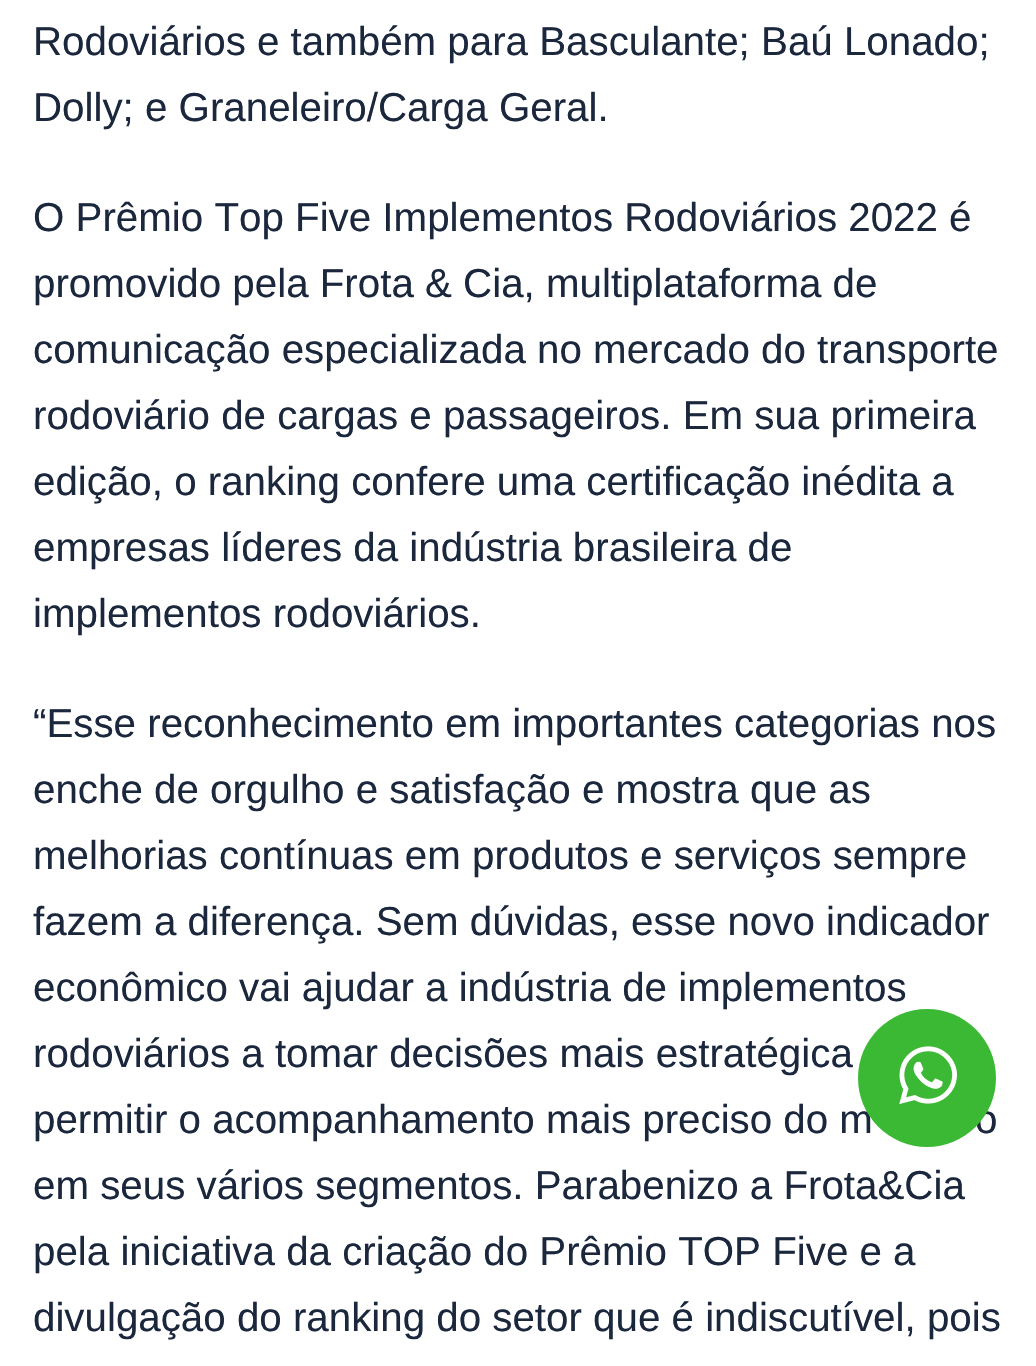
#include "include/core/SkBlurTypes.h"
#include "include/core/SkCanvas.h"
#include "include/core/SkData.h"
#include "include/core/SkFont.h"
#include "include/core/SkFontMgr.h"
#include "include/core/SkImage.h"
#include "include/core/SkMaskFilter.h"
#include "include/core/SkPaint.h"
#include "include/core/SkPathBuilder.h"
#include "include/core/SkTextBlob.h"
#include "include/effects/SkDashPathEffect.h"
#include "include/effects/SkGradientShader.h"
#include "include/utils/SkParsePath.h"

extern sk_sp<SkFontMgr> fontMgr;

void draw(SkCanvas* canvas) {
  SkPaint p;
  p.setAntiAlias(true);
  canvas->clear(SK_ColorWHITE);
  SkFont font1(fontMgr->matchFamilyStyle("Liberation Sans", SkFontStyle::Normal()), 40.3f);
  font1.setSubpixel(true);
  p.setColor(SkColorSetRGB(26, 39, 60));
  canvas->drawString("Rodoviários e também para Basculante; Baú Lonado;", 33, 55, font1, p);
  canvas->drawString("Dolly; e Graneleiro/Carga Geral.", 33, 121, font1, p);
  canvas->drawString("O Prêmio Top Five Implementos Rodoviários 2022 é", 33, 231, font1, p);
  canvas->drawString("promovido pela Frota & Cia, multiplataforma de", 33, 297, font1, p);
  canvas->drawString("comunicação especializada no mercado do transporte", 33, 363, font1, p);
  canvas->drawString("rodoviário de cargas e passageiros. Em sua primeira", 33, 429, font1, p);
  canvas->drawString("edição, o ranking confere uma certificação inédita a", 33, 495, font1, p);
  canvas->drawString("empresas líderes da indústria brasileira de", 33, 561, font1, p);
  canvas->drawString("implementos rodoviários.", 33, 627, font1, p);
  canvas->drawString("“Esse reconhecimento em importantes categorias nos", 33, 737, font1, p);
  canvas->drawString("enche de orgulho e satisfação e mostra que as", 33, 803, font1, p);
  canvas->drawString("melhorias contínuas em produtos e serviços sempre", 33, 869, font1, p);
  canvas->drawString("fazem a diferença. Sem dúvidas, esse novo indicador", 33, 935, font1, p);
  canvas->drawString("econômico vai ajudar a indústria de implementos", 33, 1001, font1, p);
  canvas->drawString("rodoviários a tomar decisões mais estratégica", 33, 1067, font1, p);
  canvas->drawString("permitir o acompanhamento mais preciso do m", 33, 1133, font1, p);
  canvas->drawString("o", 975, 1133, font1, p);
  canvas->drawString("em seus vários segmentos. Parabenizo a Frota&Cia", 33, 1199, font1, p);
  canvas->drawString("pela iniciativa da criação do Prêmio TOP Five e a", 33, 1265, font1, p);
  canvas->drawString("divulgação do ranking do setor que é indiscutível, pois", 33, 1331, font1, p);
  p.setColor(SkColorSetRGB(59, 185, 52));
  canvas->drawCircle(927, 1078, 69, p);
  canvas->drawImageRect(SkImages::DeferredFromEncodedData(SkData::MakeFromFileName("images/1.png")), SkRect::MakeLTRB(899, 1046, 957, 1105), SkSamplingOptions());
}
